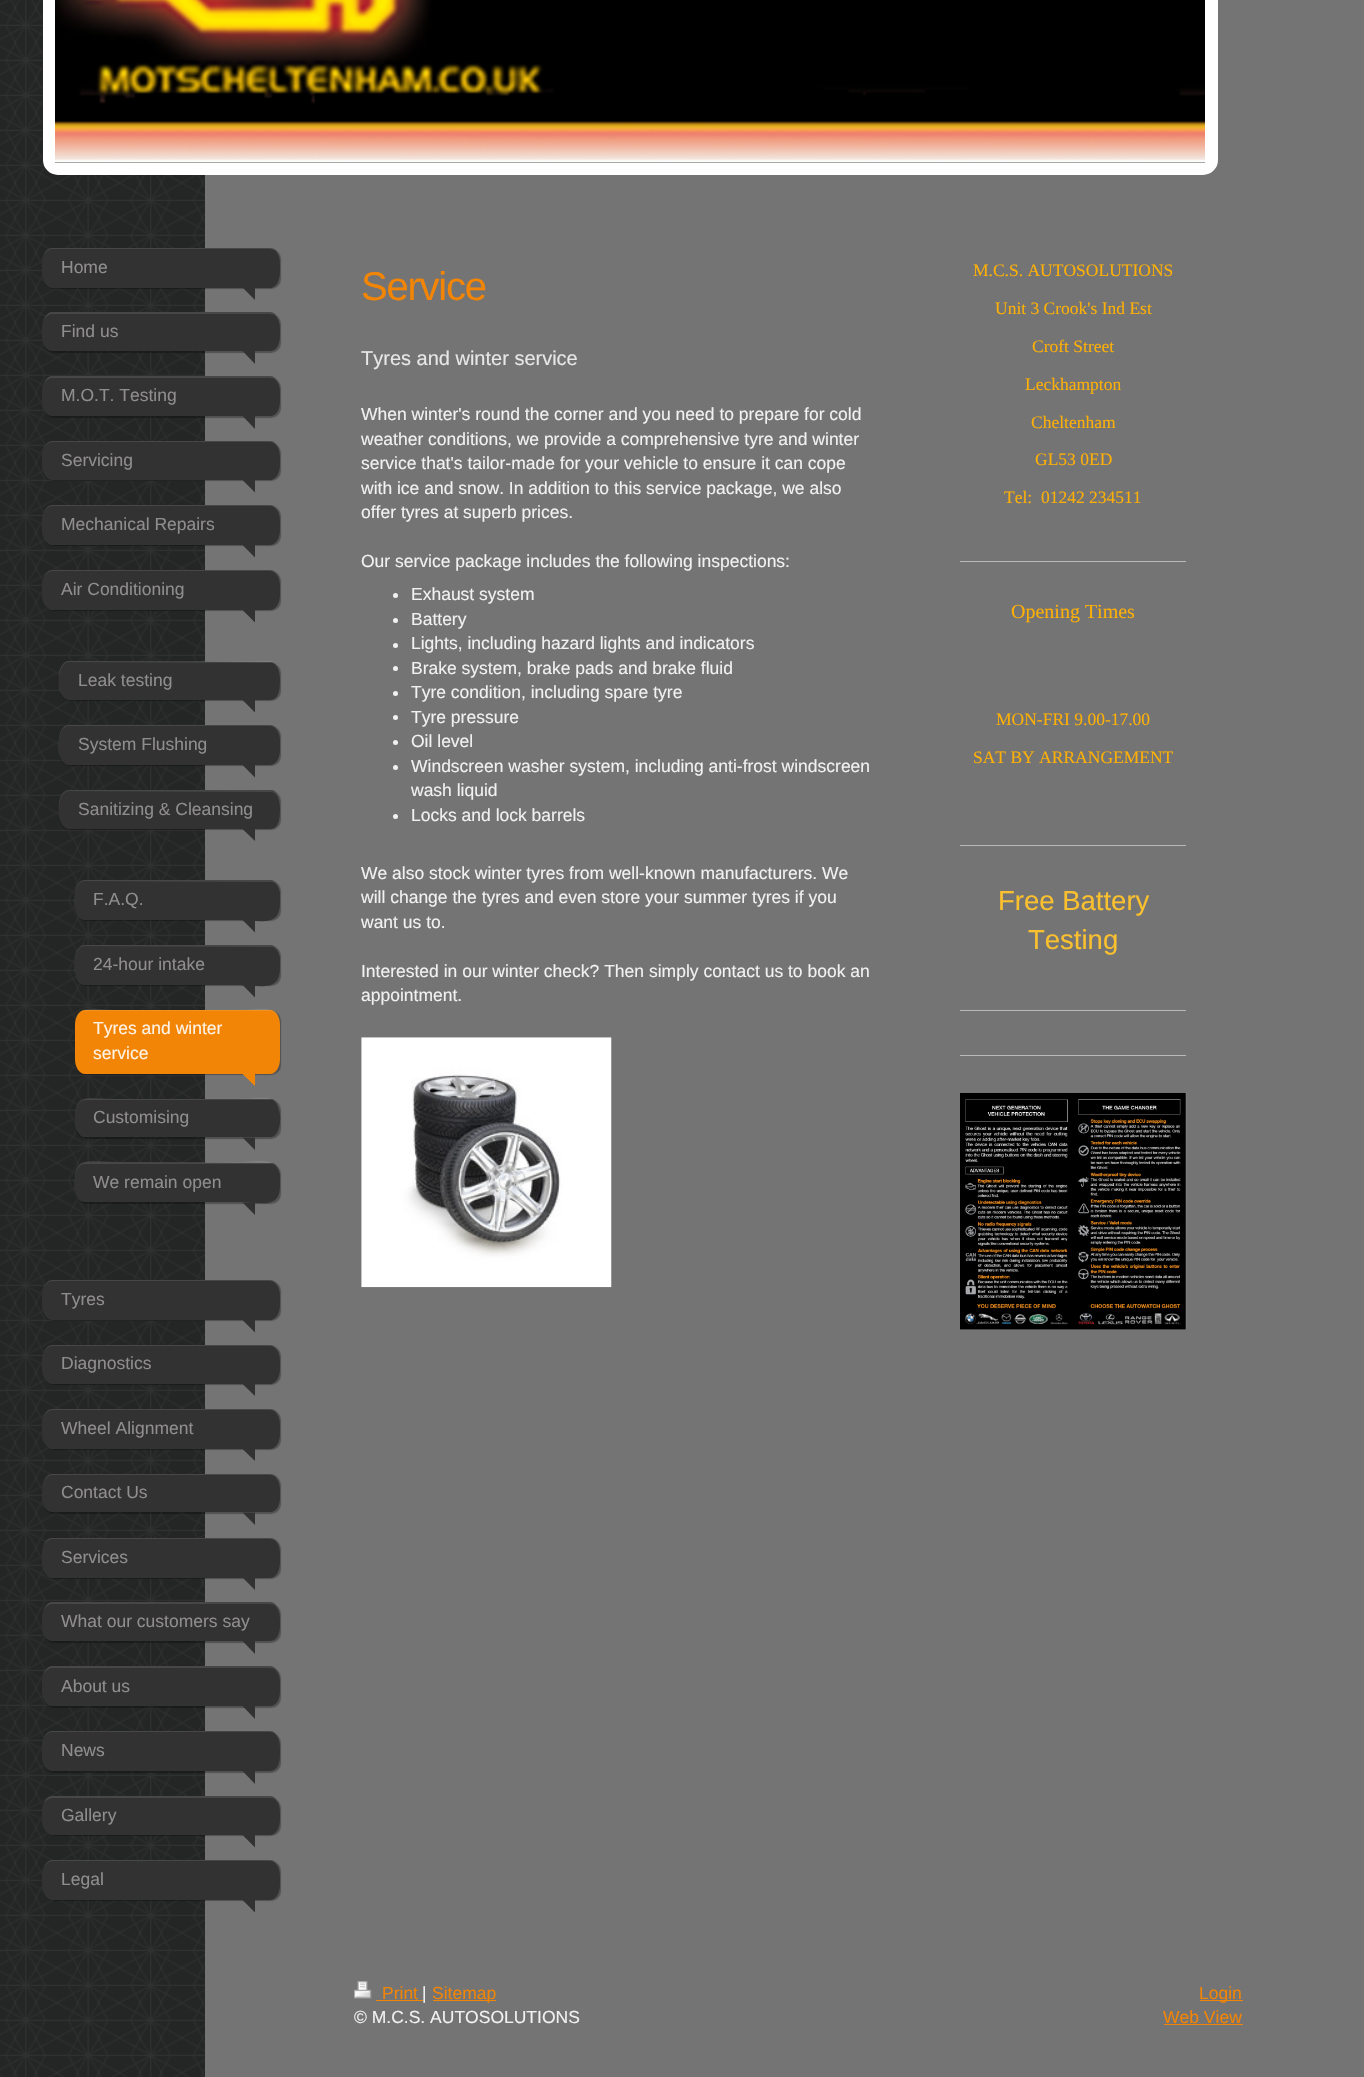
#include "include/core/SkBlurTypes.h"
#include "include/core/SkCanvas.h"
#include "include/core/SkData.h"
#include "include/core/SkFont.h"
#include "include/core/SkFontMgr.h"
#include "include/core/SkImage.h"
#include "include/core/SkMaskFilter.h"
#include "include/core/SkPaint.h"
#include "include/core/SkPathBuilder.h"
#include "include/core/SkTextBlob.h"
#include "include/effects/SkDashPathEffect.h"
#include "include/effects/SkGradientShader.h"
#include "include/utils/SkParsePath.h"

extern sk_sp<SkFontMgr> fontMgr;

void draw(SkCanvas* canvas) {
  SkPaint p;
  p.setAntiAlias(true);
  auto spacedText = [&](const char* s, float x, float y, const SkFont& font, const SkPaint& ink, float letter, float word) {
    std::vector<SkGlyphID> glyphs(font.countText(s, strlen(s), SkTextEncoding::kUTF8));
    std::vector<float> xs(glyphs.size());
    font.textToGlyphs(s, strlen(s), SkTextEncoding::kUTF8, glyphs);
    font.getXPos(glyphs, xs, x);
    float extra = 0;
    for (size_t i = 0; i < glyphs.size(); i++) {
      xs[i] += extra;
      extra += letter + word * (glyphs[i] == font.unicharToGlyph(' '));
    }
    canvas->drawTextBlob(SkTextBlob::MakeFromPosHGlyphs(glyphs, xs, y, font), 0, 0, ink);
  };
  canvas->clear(SkColorSetRGB(36, 37, 37));
  canvas->drawImageRect(SkImages::DeferredFromEncodedData(SkData::MakeFromFileName("images/1.png")), SkRect::MakeLTRB(0, 0, 205, 2077), SkSamplingOptions());
  p.setColor(SkColorSetRGB(116, 116, 116));
  canvas->drawRect(SkRect::MakeLTRB(205, 0, 1364, 2077), p);
  p.setStyle(SkPaint::kStroke_Style);
  p.setStrokeWidth(13);
  p.setColor(SK_ColorWHITE);
  canvas->drawRoundRect(SkRect::MakeLTRB(49.5f, -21.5f, 1211.5f, 168.5f), 8.5f, 8.5f, p);
  p.setStyle(SkPaint::kFill_Style);
  p.setColor(SkColorSetRGB(160, 160, 160));
  canvas->drawRect(SkRect::MakeLTRB(55, 162, 1205, 163), p);
  canvas->drawImageRect(SkImages::DeferredFromEncodedData(SkData::MakeFromFileName("images/2.png")), SkRect::MakeLTRB(55, 0, 1205, 163), SkSamplingOptions());
  p.setColor(SkColorSetARGB(77, 0, 0, 0));
  p.setMaskFilter(SkMaskFilter::MakeBlur(kNormal_SkBlurStyle, 0.5f));
  canvas->drawRoundRect(SkRect::MakeLTRB(44, 249, 281, 289), 10, 10, p);
  p.setMaskFilter(nullptr);
  p.setColor(SkColorSetRGB(51, 50, 50));
  canvas->drawPath(SkPathBuilder().moveTo(52, 248).lineTo(270, 248).cubicTo(276, 248, 280, 254, 280, 262).lineTo(280, 272).cubicTo(280, 281, 276, 288, 270, 288).lineTo(52, 288).cubicTo(47, 288, 42, 281, 42, 272).lineTo(42, 262).cubicTo(42, 254, 47, 248, 52, 248).close().detach(), p);
  p.setColor(SkColorSetARGB(26, 255, 255, 255));
  canvas->drawPath(SkPathBuilder().moveTo(52, 249).lineTo(270, 249).cubicTo(276, 249, 280, 255, 280, 264).lineTo(280, 262).cubicTo(280, 254, 276, 248, 270, 248).lineTo(52, 248).cubicTo(48, 248, 45, 251, 43, 256).cubicTo(45, 252, 49, 249, 52, 249).close().detach(), p);
  p.setColor(SkColorSetRGB(51, 50, 50));
  canvas->drawPath(SkPathBuilder().moveTo(242.5f, 287.5f).lineTo(255, 287.5f).lineTo(255, 300).close().detach(), p);
  p.setColor(SkColorSetARGB(77, 0, 0, 0));
  p.setMaskFilter(SkMaskFilter::MakeBlur(kNormal_SkBlurStyle, 0.5f));
  canvas->drawRoundRect(SkRect::MakeLTRB(44, 314, 281, 353), 10, 10, p);
  p.setMaskFilter(nullptr);
  p.setColor(SkColorSetRGB(51, 50, 50));
  canvas->drawPath(SkPathBuilder().moveTo(52, 312).lineTo(270, 312).cubicTo(276, 312, 280, 319, 280, 328).lineTo(280, 336).cubicTo(280, 345, 276, 351, 270, 351).lineTo(52, 351).cubicTo(47, 351, 42, 345, 42, 336).lineTo(42, 328).cubicTo(42, 319, 47, 312, 52, 312).close().detach(), p);
  p.setColor(SkColorSetARGB(26, 255, 255, 255));
  canvas->drawPath(SkPathBuilder().moveTo(52, 314).lineTo(270, 314).cubicTo(276, 314, 280, 320, 280, 329).lineTo(280, 328).cubicTo(280, 319, 276, 312, 270, 312).lineTo(52, 312).cubicTo(48, 312, 45, 316, 43, 321).cubicTo(45, 317, 49, 314, 52, 314).close().detach(), p);
  p.setColor(SkColorSetRGB(51, 50, 50));
  canvas->drawPath(SkPathBuilder().moveTo(242.5f, 351).lineTo(255, 351).lineTo(255, 364).close().detach(), p);
  p.setColor(SkColorSetARGB(77, 0, 0, 0));
  p.setMaskFilter(SkMaskFilter::MakeBlur(kNormal_SkBlurStyle, 0.5f));
  canvas->drawRoundRect(SkRect::MakeLTRB(44, 378, 281, 418), 10, 10, p);
  p.setMaskFilter(nullptr);
  p.setColor(SkColorSetRGB(51, 50, 50));
  canvas->drawPath(SkPathBuilder().moveTo(52, 376).lineTo(270, 376).cubicTo(276, 376, 280, 383, 280, 391).lineTo(280, 401).cubicTo(280, 410, 276, 416, 270, 416).lineTo(52, 416).cubicTo(47, 416, 42, 410, 42, 401).lineTo(42, 391).cubicTo(42, 383, 47, 376, 52, 376).close().detach(), p);
  p.setColor(SkColorSetARGB(26, 255, 255, 255));
  canvas->drawPath(SkPathBuilder().moveTo(52, 378).lineTo(270, 378).cubicTo(276, 378, 280, 384, 280, 392).lineTo(280, 391).cubicTo(280, 383, 276, 376, 270, 376).lineTo(52, 376).cubicTo(48, 376, 45, 380, 43, 385).cubicTo(45, 381, 49, 378, 52, 378).close().detach(), p);
  p.setColor(SkColorSetRGB(51, 50, 50));
  canvas->drawPath(SkPathBuilder().moveTo(242.5f, 416).lineTo(255, 416).lineTo(255, 429).close().detach(), p);
  p.setColor(SkColorSetARGB(77, 0, 0, 0));
  p.setMaskFilter(SkMaskFilter::MakeBlur(kNormal_SkBlurStyle, 0.5f));
  canvas->drawRoundRect(SkRect::MakeLTRB(44, 443, 281, 481), 10, 10, p);
  p.setMaskFilter(nullptr);
  p.setColor(SkColorSetRGB(51, 50, 50));
  canvas->drawPath(SkPathBuilder().moveTo(52, 441).lineTo(270, 441).cubicTo(276, 441, 280, 448, 280, 456).lineTo(280, 465).cubicTo(280, 473, 276, 480, 270, 480).lineTo(52, 480).cubicTo(47, 480, 42, 473, 42, 465).lineTo(42, 456).cubicTo(42, 448, 47, 441, 52, 441).close().detach(), p);
  p.setColor(SkColorSetARGB(26, 255, 255, 255));
  canvas->drawPath(SkPathBuilder().moveTo(52, 442).lineTo(270, 442).cubicTo(276, 442, 280, 449, 280, 458).lineTo(280, 456).cubicTo(280, 448, 276, 441, 270, 441).lineTo(52, 441).cubicTo(48, 441, 45, 445, 43, 450).cubicTo(45, 445, 49, 442, 52, 442).close().detach(), p);
  p.setColor(SkColorSetRGB(51, 50, 50));
  canvas->drawPath(SkPathBuilder().moveTo(242.5f, 480).lineTo(255, 480).lineTo(255, 492.5f).close().detach(), p);
  p.setColor(SkColorSetARGB(77, 0, 0, 0));
  p.setMaskFilter(SkMaskFilter::MakeBlur(kNormal_SkBlurStyle, 0.5f));
  canvas->drawRoundRect(SkRect::MakeLTRB(44, 506, 281, 546), 10, 10, p);
  p.setMaskFilter(nullptr);
  p.setColor(SkColorSetRGB(51, 50, 50));
  canvas->drawPath(SkPathBuilder().moveTo(52, 505).lineTo(270, 505).cubicTo(276, 505, 280, 512, 280, 520).lineTo(280, 530).cubicTo(280, 538, 276, 545, 270, 545).lineTo(52, 545).cubicTo(47, 545, 42, 538, 42, 530).lineTo(42, 520).cubicTo(42, 512, 47, 505, 52, 505).close().detach(), p);
  p.setColor(SkColorSetARGB(26, 255, 255, 255));
  canvas->drawPath(SkPathBuilder().moveTo(52, 506).lineTo(270, 506).cubicTo(276, 506, 280, 513, 280, 521).lineTo(280, 520).cubicTo(280, 512, 276, 505, 270, 505).lineTo(52, 505).cubicTo(48, 505, 45, 509, 43, 514).cubicTo(45, 509, 49, 506, 52, 506).close().detach(), p);
  p.setColor(SkColorSetRGB(51, 50, 50));
  canvas->drawPath(SkPathBuilder().moveTo(242.5f, 545).lineTo(255, 545).lineTo(255, 557.5f).close().detach(), p);
  p.setColor(SkColorSetARGB(77, 0, 0, 0));
  p.setMaskFilter(SkMaskFilter::MakeBlur(kNormal_SkBlurStyle, 0.5f));
  canvas->drawRoundRect(SkRect::MakeLTRB(44, 571, 281, 611), 10, 10, p);
  p.setMaskFilter(nullptr);
  p.setColor(SkColorSetRGB(51, 50, 50));
  canvas->drawPath(SkPathBuilder().moveTo(52, 570).lineTo(270, 570).cubicTo(276, 570, 280, 577, 280, 585).lineTo(280, 595).cubicTo(280, 603, 276, 610, 270, 610).lineTo(52, 610).cubicTo(47, 610, 42, 603, 42, 595).lineTo(42, 585).cubicTo(42, 577, 47, 570, 52, 570).close().detach(), p);
  p.setColor(SkColorSetARGB(26, 255, 255, 255));
  canvas->drawPath(SkPathBuilder().moveTo(52, 571).lineTo(270, 571).cubicTo(276, 571, 280, 578, 280, 586).lineTo(280, 585).cubicTo(280, 577, 276, 570, 270, 570).lineTo(52, 570).cubicTo(48, 570, 45, 574, 43, 579).cubicTo(45, 574, 49, 571, 52, 571).close().detach(), p);
  p.setColor(SkColorSetRGB(51, 50, 50));
  canvas->drawPath(SkPathBuilder().moveTo(242.5f, 610).lineTo(255, 610).lineTo(255, 622.5f).close().detach(), p);
  p.setColor(SkColorSetARGB(77, 0, 0, 0));
  p.setMaskFilter(SkMaskFilter::MakeBlur(kNormal_SkBlurStyle, 0.5f));
  canvas->drawRoundRect(SkRect::MakeLTRB(60, 663, 281, 701), 10, 10, p);
  p.setMaskFilter(nullptr);
  p.setColor(SkColorSetRGB(51, 50, 50));
  canvas->drawPath(SkPathBuilder().moveTo(69, 661).lineTo(272, 662).cubicTo(279, 664, 280, 673, 280, 679).cubicTo(280, 686, 280, 700, 270, 700).lineTo(69, 700).cubicTo(55, 700, 55, 661, 69, 661).close().detach(), p);
  p.setColor(SkColorSetARGB(26, 255, 255, 255));
  canvas->drawPath(SkPathBuilder(SkPathFillType::kEvenOdd).moveTo(69, 662).lineTo(272, 663).cubicTo(279, 665, 280, 674, 280, 680).cubicTo(280, 683, 280, 686, 279, 690).lineTo(280, 685).lineTo(280, 676).cubicTo(280, 668, 276, 661, 270, 661).lineTo(69, 661).cubicTo(63, 661, 59, 668, 59, 676).lineTo(59, 677).cubicTo(60, 669, 63, 662, 69, 662).close().moveTo(61, 694).lineTo(59, 686).cubicTo(59, 689, 60, 692, 61, 694).close().detach(), p);
  p.setColor(SkColorSetRGB(51, 50, 50));
  canvas->drawPath(SkPathBuilder().moveTo(242.5f, 700).lineTo(255, 700).lineTo(255, 712.5f).close().detach(), p);
  p.setColor(SkColorSetARGB(77, 0, 0, 0));
  p.setMaskFilter(SkMaskFilter::MakeBlur(kNormal_SkBlurStyle, 0.5f));
  canvas->drawRoundRect(SkRect::MakeLTRB(60, 726, 281, 766), 10, 10, p);
  p.setMaskFilter(nullptr);
  p.setColor(SkColorSetRGB(51, 50, 50));
  canvas->drawPath(SkPathBuilder().moveTo(69, 725).lineTo(270, 725).cubicTo(276, 725, 280, 732, 280, 740).lineTo(280, 750).cubicTo(280, 758, 276, 765, 270, 765).lineTo(69, 765).cubicTo(63, 765, 59, 758, 59, 750).lineTo(59, 740).cubicTo(59, 732, 63, 725, 69, 725).close().detach(), p);
  p.setColor(SkColorSetARGB(26, 255, 255, 255));
  canvas->drawPath(SkPathBuilder().moveTo(69, 726).lineTo(270, 726).cubicTo(276, 726, 280, 733, 280, 741).cubicTo(280, 735, 278, 725, 270, 725).lineTo(69, 725).cubicTo(61, 725, 59, 736, 59, 742).lineTo(59, 755).cubicTo(58, 746, 58, 726, 69, 726).close().detach(), p);
  p.setColor(SkColorSetRGB(51, 50, 50));
  canvas->drawPath(SkPathBuilder().moveTo(242.5f, 765).lineTo(255, 765).lineTo(255, 777.5f).close().detach(), p);
  p.setColor(SkColorSetARGB(77, 0, 0, 0));
  p.setMaskFilter(SkMaskFilter::MakeBlur(kNormal_SkBlurStyle, 0.5f));
  canvas->drawRoundRect(SkRect::MakeLTRB(60, 791, 281, 830), 10, 10, p);
  p.setMaskFilter(nullptr);
  p.setColor(SkColorSetRGB(51, 50, 50));
  canvas->drawPath(SkPathBuilder().moveTo(69, 790).lineTo(272, 790).cubicTo(279, 792, 280, 802, 280, 808).cubicTo(280, 815, 280, 829, 270, 829).lineTo(69, 829).cubicTo(55, 829, 55, 790, 69, 790).close().detach(), p);
  p.setColor(SkColorSetARGB(26, 255, 255, 255));
  canvas->drawPath(SkPathBuilder(SkPathFillType::kEvenOdd).moveTo(69, 791).lineTo(272, 792).cubicTo(279, 794, 280, 803, 280, 809).lineTo(280, 818).lineTo(280, 806).cubicTo(280, 800, 278, 790, 270, 790).lineTo(69, 790).cubicTo(61, 790, 59, 800, 59, 806).cubicTo(60, 798, 63, 791, 69, 791).close().moveTo(60, 821).lineTo(59, 816).close().detach(), p);
  p.setColor(SkColorSetRGB(51, 50, 50));
  canvas->drawPath(SkPathBuilder().moveTo(242.5f, 829).lineTo(255, 829).lineTo(255, 841).close().detach(), p);
  p.setColor(SkColorSetARGB(77, 0, 0, 0));
  p.setMaskFilter(SkMaskFilter::MakeBlur(kNormal_SkBlurStyle, 0.5f));
  canvas->drawRoundRect(SkRect::MakeLTRB(76, 881, 281, 921), 10, 10, p);
  p.setMaskFilter(nullptr);
  p.setColor(SkColorSetRGB(51, 50, 50));
  canvas->drawPath(SkPathBuilder().moveTo(85, 880).lineTo(272, 880).cubicTo(277, 882, 279, 887, 280, 892).lineTo(280, 903).cubicTo(280, 928, 259, 920, 239, 920).lineTo(85, 920).cubicTo(75, 920, 75, 907, 75, 900).cubicTo(75, 893, 75, 880, 85, 880).close().detach(), p);
  p.setColor(SkColorSetARGB(26, 255, 255, 255));
  canvas->drawPath(SkPathBuilder().moveTo(85, 881).lineTo(272, 882).cubicTo(277, 883, 279, 888, 280, 892).cubicTo(279, 885, 275, 880, 270, 880).lineTo(85, 880).cubicTo(79, 880, 75, 887, 75, 895).lineTo(75, 909).cubicTo(74, 900, 74, 881, 85, 881).close().detach(), p);
  p.setColor(SkColorSetRGB(51, 50, 50));
  canvas->drawPath(SkPathBuilder().moveTo(242.5f, 920).lineTo(255, 920).lineTo(255, 932.5f).close().detach(), p);
  p.setColor(SkColorSetARGB(77, 0, 0, 0));
  p.setMaskFilter(SkMaskFilter::MakeBlur(kNormal_SkBlurStyle, 0.5f));
  canvas->drawRoundRect(SkRect::MakeLTRB(76, 946, 281, 986), 10, 10, p);
  p.setMaskFilter(nullptr);
  p.setColor(SkColorSetRGB(51, 50, 50));
  canvas->drawPath(SkPathBuilder().moveTo(85, 945).lineTo(272, 945).cubicTo(277, 947, 279, 952, 280, 957).lineTo(280, 968).cubicTo(280, 993, 259, 985, 239, 985).lineTo(85, 985).cubicTo(75, 985, 75, 972, 75, 965).cubicTo(75, 958, 75, 945, 85, 945).close().detach(), p);
  p.setColor(SkColorSetARGB(26, 255, 255, 255));
  canvas->drawPath(SkPathBuilder().moveTo(85, 946).lineTo(272, 947).cubicTo(277, 948, 279, 953, 280, 957).cubicTo(279, 950, 275, 945, 270, 945).lineTo(85, 945).cubicTo(79, 945, 75, 952, 75, 960).lineTo(75, 974).cubicTo(74, 965, 74, 946, 85, 946).close().detach(), p);
  p.setColor(SkColorSetRGB(51, 50, 50));
  canvas->drawPath(SkPathBuilder().moveTo(242.5f, 985).lineTo(255, 985).lineTo(255, 997.5f).close().detach(), p);
  p.setColor(SkColorSetARGB(77, 0, 0, 0));
  p.setMaskFilter(SkMaskFilter::MakeBlur(kNormal_SkBlurStyle, 0.5f));
  canvas->drawRoundRect(SkRect::MakeLTRB(76, 1011, 281, 1075), 10, 10, p);
  p.setMaskFilter(nullptr);
  p.setColor(SkColorSetRGB(242, 133, 5));
  canvas->drawPath(SkPathBuilder().moveTo(85, 1010).lineTo(270, 1010).cubicTo(276, 1010, 280, 1017, 280, 1025).lineTo(280, 1059).cubicTo(280, 1067, 276, 1074, 270, 1074).lineTo(85, 1074).cubicTo(79, 1074, 75, 1067, 75, 1059).lineTo(75, 1025).cubicTo(75, 1017, 79, 1010, 85, 1010).close().detach(), p);
  p.setColor(SkColorSetARGB(26, 255, 255, 255));
  canvas->drawPath(SkPathBuilder().moveTo(85, 1011).lineTo(270, 1011).cubicTo(276, 1011, 280, 1018, 280, 1026).cubicTo(280, 1002, 258, 1010, 239, 1010).lineTo(116, 1010).cubicTo(97, 1010, 75, 1002, 75, 1026).cubicTo(75, 1018, 79, 1011, 85, 1011).close().detach(), p);
  p.setColor(SkColorSetRGB(242, 133, 5));
  canvas->drawPath(SkPathBuilder().moveTo(242.5f, 1074).lineTo(255, 1074).lineTo(255, 1086).close().detach(), p);
  p.setColor(SkColorSetARGB(77, 0, 0, 0));
  p.setMaskFilter(SkMaskFilter::MakeBlur(kNormal_SkBlurStyle, 0.5f));
  canvas->drawRoundRect(SkRect::MakeLTRB(76, 1100, 281, 1139), 10, 10, p);
  p.setMaskFilter(nullptr);
  p.setColor(SkColorSetRGB(51, 50, 50));
  canvas->drawPath(SkPathBuilder().moveTo(85, 1099).lineTo(272, 1099).cubicTo(283, 1102, 283, 1134, 272, 1137).lineTo(83, 1137).cubicTo(72, 1134, 72, 1099, 85, 1099).close().detach(), p);
  p.setColor(SkColorSetARGB(26, 255, 255, 255));
  canvas->drawPath(SkPathBuilder(SkPathFillType::kEvenOdd).moveTo(85, 1100).lineTo(272, 1100).cubicTo(277, 1102, 279, 1108, 280, 1115).cubicTo(280, 1091, 258, 1099, 239, 1099).lineTo(116, 1099).cubicTo(90, 1099, 75, 1091, 75, 1118).cubicTo(75, 1109, 78, 1100, 85, 1100).close().moveTo(280, 1125).lineTo(279, 1129).close().moveTo(78, 1132).cubicTo(76, 1129, 75, 1125, 75, 1120).cubicTo(75, 1124, 75, 1129, 78, 1132).close().detach(), p);
  p.setColor(SkColorSetRGB(51, 50, 50));
  canvas->drawPath(SkPathBuilder().moveTo(242.5f, 1137.5f).lineTo(255, 1137.5f).lineTo(255, 1150).close().detach(), p);
  p.setColor(SkColorSetARGB(77, 0, 0, 0));
  p.setMaskFilter(SkMaskFilter::MakeBlur(kNormal_SkBlurStyle, 0.5f));
  canvas->drawRoundRect(SkRect::MakeLTRB(76, 1164, 281, 1204), 10, 10, p);
  p.setMaskFilter(nullptr);
  p.setColor(SkColorSetRGB(51, 50, 50));
  canvas->drawPath(SkPathBuilder().moveTo(85, 1162).lineTo(272, 1163).cubicTo(277, 1164, 279, 1170, 280, 1174).lineTo(280, 1186).cubicTo(280, 1210, 259, 1202, 239, 1202).lineTo(85, 1202).cubicTo(75, 1202, 75, 1189, 75, 1182).cubicTo(75, 1176, 75, 1162, 85, 1162).close().detach(), p);
  p.setColor(SkColorSetARGB(26, 255, 255, 255));
  canvas->drawPath(SkPathBuilder(SkPathFillType::kEvenOdd).moveTo(85, 1164).lineTo(272, 1164).cubicTo(277, 1166, 279, 1171, 280, 1176).cubicTo(278, 1155, 254, 1162, 239, 1162).lineTo(116, 1162).cubicTo(96, 1162, 75, 1155, 75, 1179).lineTo(75, 1191).cubicTo(74, 1183, 74, 1164, 85, 1164).close().moveTo(280, 1187).lineTo(280, 1189).close().detach(), p);
  p.setColor(SkColorSetRGB(51, 50, 50));
  canvas->drawPath(SkPathBuilder().moveTo(242.5f, 1202.5f).lineTo(255, 1202.5f).lineTo(255, 1215).close().detach(), p);
  p.setColor(SkColorSetARGB(77, 0, 0, 0));
  p.setMaskFilter(SkMaskFilter::MakeBlur(kNormal_SkBlurStyle, 0.5f));
  canvas->drawRoundRect(SkRect::MakeLTRB(44, 1281, 281, 1321), 10, 10, p);
  p.setMaskFilter(nullptr);
  p.setColor(SkColorSetRGB(51, 50, 50));
  canvas->drawPath(SkPathBuilder().moveTo(52, 1280).lineTo(270, 1280).cubicTo(276, 1280, 280, 1287, 280, 1295).lineTo(280, 1305).cubicTo(280, 1313, 276, 1320, 270, 1320).lineTo(52, 1320).cubicTo(47, 1320, 42, 1313, 42, 1305).lineTo(42, 1295).cubicTo(42, 1287, 47, 1280, 52, 1280).close().detach(), p);
  p.setColor(SkColorSetARGB(26, 255, 255, 255));
  canvas->drawPath(SkPathBuilder().moveTo(52, 1281).lineTo(270, 1281).cubicTo(276, 1281, 280, 1288, 280, 1296).lineTo(280, 1295).cubicTo(280, 1287, 276, 1280, 270, 1280).lineTo(52, 1280).cubicTo(48, 1280, 45, 1284, 43, 1289).cubicTo(45, 1284, 49, 1281, 52, 1281).close().detach(), p);
  p.setColor(SkColorSetRGB(51, 50, 50));
  canvas->drawPath(SkPathBuilder().moveTo(242.5f, 1320).lineTo(255, 1320).lineTo(255, 1332.5f).close().detach(), p);
  p.setColor(SkColorSetARGB(77, 0, 0, 0));
  p.setMaskFilter(SkMaskFilter::MakeBlur(kNormal_SkBlurStyle, 0.5f));
  canvas->drawRoundRect(SkRect::MakeLTRB(44, 1346, 281, 1385), 10, 10, p);
  p.setMaskFilter(nullptr);
  p.setColor(SkColorSetRGB(51, 50, 50));
  canvas->drawPath(SkPathBuilder().moveTo(52, 1345).lineTo(270, 1345).cubicTo(276, 1345, 280, 1352, 280, 1360).lineTo(280, 1369).cubicTo(280, 1377, 276, 1384, 270, 1384).lineTo(52, 1384).cubicTo(47, 1384, 42, 1377, 42, 1369).lineTo(42, 1360).cubicTo(42, 1352, 47, 1345, 52, 1345).close().detach(), p);
  p.setColor(SkColorSetARGB(26, 255, 255, 255));
  canvas->drawPath(SkPathBuilder().moveTo(52, 1346).lineTo(270, 1346).cubicTo(276, 1346, 280, 1353, 280, 1361).lineTo(280, 1360).cubicTo(280, 1352, 276, 1345, 270, 1345).lineTo(52, 1345).cubicTo(48, 1345, 45, 1349, 43, 1354).cubicTo(45, 1349, 49, 1346, 52, 1346).close().detach(), p);
  p.setColor(SkColorSetRGB(51, 50, 50));
  canvas->drawPath(SkPathBuilder().moveTo(242.5f, 1384).lineTo(255, 1384).lineTo(255, 1396).close().detach(), p);
  p.setColor(SkColorSetARGB(77, 0, 0, 0));
  p.setMaskFilter(SkMaskFilter::MakeBlur(kNormal_SkBlurStyle, 0.5f));
  canvas->drawRoundRect(SkRect::MakeLTRB(44, 1410, 281, 1450), 10, 10, p);
  p.setMaskFilter(nullptr);
  p.setColor(SkColorSetRGB(51, 50, 50));
  canvas->drawPath(SkPathBuilder().moveTo(52, 1409).lineTo(270, 1409).cubicTo(276, 1409, 280, 1415, 280, 1424).lineTo(280, 1434).cubicTo(280, 1442, 276, 1449, 270, 1449).lineTo(52, 1449).cubicTo(47, 1449, 42, 1442, 42, 1434).lineTo(42, 1424).cubicTo(42, 1415, 47, 1409, 52, 1409).close().detach(), p);
  p.setColor(SkColorSetARGB(26, 255, 255, 255));
  canvas->drawPath(SkPathBuilder().moveTo(52, 1410).lineTo(270, 1410).cubicTo(276, 1410, 280, 1417, 280, 1425).lineTo(280, 1424).cubicTo(280, 1415, 276, 1409, 270, 1409).lineTo(52, 1409).cubicTo(48, 1409, 45, 1413, 43, 1418).cubicTo(45, 1414, 48, 1410, 52, 1410).close().detach(), p);
  p.setColor(SkColorSetRGB(51, 50, 50));
  canvas->drawPath(SkPathBuilder().moveTo(242.5f, 1449).lineTo(255, 1449).lineTo(255, 1461).close().detach(), p);
  p.setColor(SkColorSetARGB(77, 0, 0, 0));
  p.setMaskFilter(SkMaskFilter::MakeBlur(kNormal_SkBlurStyle, 0.5f));
  canvas->drawRoundRect(SkRect::MakeLTRB(44, 1475, 281, 1514), 10, 10, p);
  p.setMaskFilter(nullptr);
  p.setColor(SkColorSetRGB(51, 50, 50));
  canvas->drawPath(SkPathBuilder().moveTo(52, 1474).lineTo(270, 1474).cubicTo(276, 1474, 280, 1480, 280, 1489).lineTo(280, 1498).cubicTo(280, 1506, 276, 1512, 270, 1512).lineTo(52, 1512).cubicTo(47, 1512, 42, 1506, 42, 1498).lineTo(42, 1489).cubicTo(42, 1480, 47, 1474, 52, 1474).close().detach(), p);
  p.setColor(SkColorSetARGB(26, 255, 255, 255));
  canvas->drawPath(SkPathBuilder().moveTo(52, 1475).lineTo(270, 1475).cubicTo(276, 1475, 280, 1482, 280, 1490).lineTo(280, 1489).cubicTo(280, 1480, 276, 1474, 270, 1474).lineTo(52, 1474).cubicTo(48, 1474, 45, 1478, 43, 1483).cubicTo(45, 1479, 48, 1475, 52, 1475).close().detach(), p);
  p.setColor(SkColorSetRGB(51, 50, 50));
  canvas->drawPath(SkPathBuilder().moveTo(242.5f, 1512.5f).lineTo(255, 1512.5f).lineTo(255, 1525).close().detach(), p);
  p.setColor(SkColorSetARGB(77, 0, 0, 0));
  p.setMaskFilter(SkMaskFilter::MakeBlur(kNormal_SkBlurStyle, 0.5f));
  canvas->drawRoundRect(SkRect::MakeLTRB(44, 1539, 281, 1579), 10, 10, p);
  p.setMaskFilter(nullptr);
  p.setColor(SkColorSetRGB(51, 50, 50));
  canvas->drawPath(SkPathBuilder().moveTo(52, 1538).lineTo(270, 1538).cubicTo(276, 1538, 280, 1544, 280, 1552).lineTo(280, 1562).cubicTo(280, 1571, 276, 1578, 270, 1578).lineTo(52, 1578).cubicTo(47, 1578, 42, 1571, 42, 1562).lineTo(42, 1552).cubicTo(42, 1544, 47, 1538, 52, 1538).close().detach(), p);
  p.setColor(SkColorSetARGB(26, 255, 255, 255));
  canvas->drawPath(SkPathBuilder().moveTo(52, 1539).lineTo(270, 1539).cubicTo(276, 1539, 280, 1545, 280, 1554).lineTo(280, 1552).cubicTo(280, 1544, 276, 1538, 270, 1538).lineTo(52, 1538).cubicTo(48, 1538, 45, 1541, 43, 1546).cubicTo(45, 1542, 49, 1539, 52, 1539).close().detach(), p);
  p.setColor(SkColorSetRGB(51, 50, 50));
  canvas->drawPath(SkPathBuilder().moveTo(242.5f, 1577.5f).lineTo(255, 1577.5f).lineTo(255, 1590).close().detach(), p);
  p.setColor(SkColorSetARGB(77, 0, 0, 0));
  p.setMaskFilter(SkMaskFilter::MakeBlur(kNormal_SkBlurStyle, 0.5f));
  canvas->drawRoundRect(SkRect::MakeLTRB(44, 1604, 281, 1643), 10, 10, p);
  p.setMaskFilter(nullptr);
  p.setColor(SkColorSetRGB(51, 50, 50));
  canvas->drawPath(SkPathBuilder().moveTo(52, 1602).lineTo(270, 1602).cubicTo(276, 1602, 280, 1609, 280, 1618).lineTo(280, 1626).cubicTo(280, 1635, 276, 1641, 270, 1641).lineTo(52, 1641).cubicTo(47, 1641, 42, 1635, 42, 1626).lineTo(42, 1618).cubicTo(42, 1609, 47, 1602, 52, 1602).close().detach(), p);
  p.setColor(SkColorSetARGB(26, 255, 255, 255));
  canvas->drawPath(SkPathBuilder().moveTo(52, 1604).lineTo(270, 1604).cubicTo(276, 1604, 280, 1610, 280, 1619).lineTo(280, 1618).cubicTo(280, 1609, 276, 1602, 270, 1602).lineTo(52, 1602).cubicTo(48, 1602, 45, 1606, 43, 1611).cubicTo(45, 1607, 49, 1604, 52, 1604).close().detach(), p);
  p.setColor(SkColorSetRGB(51, 50, 50));
  canvas->drawPath(SkPathBuilder().moveTo(242.5f, 1641).lineTo(255, 1641).lineTo(255, 1654).close().detach(), p);
  p.setColor(SkColorSetARGB(77, 0, 0, 0));
  p.setMaskFilter(SkMaskFilter::MakeBlur(kNormal_SkBlurStyle, 0.5f));
  canvas->drawRoundRect(SkRect::MakeLTRB(44, 1668, 281, 1708), 10, 10, p);
  p.setMaskFilter(nullptr);
  p.setColor(SkColorSetRGB(51, 50, 50));
  canvas->drawPath(SkPathBuilder().moveTo(52, 1666).lineTo(270, 1666).cubicTo(276, 1666, 280, 1673, 280, 1681).lineTo(280, 1691).cubicTo(280, 1700, 276, 1706, 270, 1706).lineTo(52, 1706).cubicTo(47, 1706, 42, 1700, 42, 1691).lineTo(42, 1681).cubicTo(42, 1673, 47, 1666, 52, 1666).close().detach(), p);
  p.setColor(SkColorSetARGB(26, 255, 255, 255));
  canvas->drawPath(SkPathBuilder().moveTo(52, 1668).lineTo(270, 1668).cubicTo(276, 1668, 280, 1674, 280, 1682).lineTo(280, 1681).cubicTo(280, 1673, 276, 1666, 270, 1666).lineTo(52, 1666).cubicTo(48, 1666, 45, 1670, 43, 1675).cubicTo(45, 1671, 49, 1668, 52, 1668).close().detach(), p);
  p.setColor(SkColorSetRGB(51, 50, 50));
  canvas->drawPath(SkPathBuilder().moveTo(242.5f, 1706).lineTo(255, 1706).lineTo(255, 1719).close().detach(), p);
  p.setColor(SkColorSetARGB(77, 0, 0, 0));
  p.setMaskFilter(SkMaskFilter::MakeBlur(kNormal_SkBlurStyle, 0.5f));
  canvas->drawRoundRect(SkRect::MakeLTRB(44, 1733, 281, 1773), 10, 10, p);
  p.setMaskFilter(nullptr);
  p.setColor(SkColorSetRGB(51, 50, 50));
  canvas->drawPath(SkPathBuilder().moveTo(52, 1731).lineTo(270, 1731).cubicTo(276, 1731, 280, 1738, 280, 1746).lineTo(280, 1756).cubicTo(280, 1765, 276, 1771, 270, 1771).lineTo(52, 1771).cubicTo(47, 1771, 42, 1765, 42, 1756).lineTo(42, 1746).cubicTo(42, 1738, 47, 1731, 52, 1731).close().detach(), p);
  p.setColor(SkColorSetARGB(26, 255, 255, 255));
  canvas->drawPath(SkPathBuilder().moveTo(52, 1732).lineTo(270, 1732).cubicTo(276, 1732, 280, 1739, 280, 1748).lineTo(280, 1746).cubicTo(280, 1738, 276, 1731, 270, 1731).lineTo(52, 1731).cubicTo(48, 1731, 45, 1735, 43, 1740).cubicTo(45, 1735, 49, 1732, 52, 1732).close().detach(), p);
  p.setColor(SkColorSetRGB(51, 50, 50));
  canvas->drawPath(SkPathBuilder().moveTo(242.5f, 1771).lineTo(255, 1771).lineTo(255, 1784).close().detach(), p);
  p.setColor(SkColorSetARGB(77, 0, 0, 0));
  p.setMaskFilter(SkMaskFilter::MakeBlur(kNormal_SkBlurStyle, 0.5f));
  canvas->drawRoundRect(SkRect::MakeLTRB(44, 1798, 281, 1836), 10, 10, p);
  p.setMaskFilter(nullptr);
  p.setColor(SkColorSetRGB(51, 50, 50));
  canvas->drawPath(SkPathBuilder().moveTo(52, 1796).lineTo(270, 1796).cubicTo(276, 1796, 280, 1803, 280, 1811).lineTo(280, 1820).cubicTo(280, 1828, 276, 1835, 270, 1835).lineTo(52, 1835).cubicTo(47, 1835, 42, 1828, 42, 1820).lineTo(42, 1811).cubicTo(42, 1803, 47, 1796, 52, 1796).close().detach(), p);
  p.setColor(SkColorSetARGB(26, 255, 255, 255));
  canvas->drawPath(SkPathBuilder().moveTo(52, 1798).lineTo(270, 1798).cubicTo(276, 1798, 280, 1804, 280, 1812).lineTo(280, 1811).cubicTo(280, 1803, 276, 1796, 270, 1796).lineTo(52, 1796).cubicTo(48, 1796, 45, 1800, 43, 1805).cubicTo(45, 1801, 49, 1798, 52, 1798).close().detach(), p);
  p.setColor(SkColorSetRGB(51, 50, 50));
  canvas->drawPath(SkPathBuilder().moveTo(242.5f, 1835).lineTo(255, 1835).lineTo(255, 1847.5f).close().detach(), p);
  p.setColor(SkColorSetARGB(77, 0, 0, 0));
  p.setMaskFilter(SkMaskFilter::MakeBlur(kNormal_SkBlurStyle, 0.5f));
  canvas->drawRoundRect(SkRect::MakeLTRB(44, 1861, 281, 1901), 10, 10, p);
  p.setMaskFilter(nullptr);
  p.setColor(SkColorSetRGB(51, 50, 50));
  canvas->drawPath(SkPathBuilder().moveTo(52, 1860).lineTo(270, 1860).cubicTo(276, 1860, 280, 1867, 280, 1875).lineTo(280, 1885).cubicTo(280, 1893, 276, 1900, 270, 1900).lineTo(52, 1900).cubicTo(47, 1900, 42, 1893, 42, 1885).lineTo(42, 1875).cubicTo(42, 1867, 47, 1860, 52, 1860).close().detach(), p);
  p.setColor(SkColorSetARGB(26, 255, 255, 255));
  canvas->drawPath(SkPathBuilder().moveTo(52, 1861).lineTo(270, 1861).cubicTo(276, 1861, 280, 1868, 280, 1876).lineTo(280, 1875).cubicTo(280, 1867, 276, 1860, 270, 1860).lineTo(52, 1860).cubicTo(48, 1860, 45, 1864, 43, 1869).cubicTo(45, 1864, 49, 1861, 52, 1861).close().detach(), p);
  p.setColor(SkColorSetRGB(51, 50, 50));
  canvas->drawPath(SkPathBuilder().moveTo(242.5f, 1900).lineTo(255, 1900).lineTo(255, 1912.5f).close().detach(), p);
  p.setColor(SkColorSetRGB(241, 241, 241));
  canvas->drawCircle(395.5f, 595.5f, 2.5f, p);
  canvas->drawCircle(395.5f, 620.5f, 2.5f, p);
  canvas->drawCircle(395.5f, 645.5f, 2.5f, p);
  canvas->drawCircle(395.5f, 668.5f, 2.5f, p);
  canvas->drawCircle(395.5f, 693.5f, 2.5f, p);
  canvas->drawCircle(395.5f, 717.5f, 2.5f, p);
  canvas->drawCircle(395.5f, 742.5f, 2.5f, p);
  canvas->drawCircle(395.5f, 767.5f, 2.5f, p);
  canvas->drawCircle(395.5f, 816.5f, 2.5f, p);
  canvas->drawImageRect(SkImages::DeferredFromEncodedData(SkData::MakeFromFileName("images/3.png")), SkRect::MakeLTRB(361, 1037, 612, 1288), SkSamplingOptions());
  p.setColor(SkColorSetRGB(185, 185, 185));
  canvas->drawRect(SkRect::MakeLTRB(960, 561, 1186, 562), p);
  canvas->drawRect(SkRect::MakeLTRB(960, 845, 1186, 846), p);
  canvas->drawRect(SkRect::MakeLTRB(960, 1010, 1186, 1011), p);
  canvas->drawRect(SkRect::MakeLTRB(960, 1055, 1186, 1056), p);
  canvas->drawImageRect(SkImages::DeferredFromEncodedData(SkData::MakeFromFileName("images/4.png")), SkRect::MakeLTRB(960, 1092, 1187, 1330), SkSamplingOptions());
  canvas->drawImageRect(SkImages::DeferredFromEncodedData(SkData::MakeFromFileName("images/5.png")), SkRect::MakeLTRB(354, 1981, 372, 1999), SkSamplingOptions());
  p.setColor(SkColorSetRGB(242, 133, 5));
  canvas->drawRect(SkRect::MakeLTRB(376, 2000, 423, 2001), p);
  canvas->drawRect(SkRect::MakeLTRB(433, 2000, 496, 2001), p);
  canvas->drawRect(SkRect::MakeLTRB(1200, 2000, 1243, 2001), p);
  canvas->drawRect(SkRect::MakeLTRB(1164, 2024, 1243, 2025), p);
  SkFont font1(fontMgr->matchFamilyStyle("Liberation Sans", SkFontStyle::Normal()), 17.5f);
  font1.setSubpixel(true);
  p.setColor(SkColorSetRGB(143, 141, 141));
  canvas->drawString("Home", 61, 273, font1, p);
  canvas->drawString("Find us", 61, 337, font1, p);
  canvas->drawString("M.O.T. Testing", 61, 401, font1, p);
  canvas->drawString("Servicing", 61, 466, font1, p);
  canvas->drawString("Mechanical Repairs", 61, 530, font1, p);
  canvas->drawString("Air Conditioning", 61, 595, font1, p);
  canvas->drawString("Leak testing", 78, 686, font1, p);
  canvas->drawString("System Flushing", 78, 750, font1, p);
  canvas->drawString("Sanitizing & Cleansing", 78, 815, font1, p);
  canvas->drawString("F.A.Q.", 93, 905, font1, p);
  canvas->drawString("24-hour intake", 93, 970, font1, p);
  p.setColor(SkColorSetRGB(254, 243, 230));
  canvas->drawString("Tyres and winter", 93, 1034, font1, p);
  canvas->drawString("service", 93, 1059, font1, p);
  p.setColor(SkColorSetRGB(143, 141, 141));
  canvas->drawString("Customising", 93, 1123, font1, p);
  canvas->drawString("We remain open", 93, 1188, font1, p);
  canvas->drawString("Tyres", 61, 1305, font1, p);
  canvas->drawString("Diagnostics", 61, 1369, font1, p);
  canvas->drawString("Wheel Alignment", 61, 1434, font1, p);
  canvas->drawString("Contact Us", 61, 1498, font1, p);
  canvas->drawString("Services", 61, 1563, font1, p);
  canvas->drawString("What our customers say", 61, 1627, font1, p);
  canvas->drawString("About us", 61, 1692, font1, p);
  canvas->drawString("News", 61, 1756, font1, p);
  canvas->drawString("Gallery", 61, 1821, font1, p);
  canvas->drawString("Legal", 61, 1885, font1, p);
  SkFont font2(fontMgr->matchFamilyStyle("Liberation Sans", SkFontStyle::Normal()), 40);
  font2.setSubpixel(true);
  p.setColor(SkColorSetRGB(242, 133, 5));
  spacedText("Service", 361, 300, font2, p, -1.25f, 0);
  SkFont font3(fontMgr->matchFamilyStyle("Liberation Sans", SkFontStyle::Normal()), 20);
  font3.setSubpixel(true);
  p.setColor(SkColorSetRGB(231, 231, 231));
  canvas->drawString("Tyres and winter service", 361, 365, font3, p);
  p.setColor(SkColorSetRGB(241, 241, 241));
  canvas->drawString("When winter's round the corner and you need to prepare for cold", 361, 420, font1, p);
  canvas->drawString("weather conditions, we provide a comprehensive tyre and winter", 361, 445, font1, p);
  canvas->drawString("service that's tailor-made for your vehicle to ensure it can cope", 361, 469, font1, p);
  canvas->drawString("with ice and snow. In addition to this service package, we also", 361, 494, font1, p);
  canvas->drawString("offer tyres at superb prices.", 361, 518, font1, p);
  canvas->drawString("Our service package includes the following inspections:", 361, 567, font1, p);
  canvas->drawString("Exhaust system", 411, 600, font1, p);
  canvas->drawString("Battery", 411, 625, font1, p);
  canvas->drawString("Lights, including hazard lights and indicators", 411, 649, font1, p);
  canvas->drawString("Brake system, brake pads and brake fluid", 411, 674, font1, p);
  canvas->drawString("Tyre condition, including spare tyre", 411, 698, font1, p);
  canvas->drawString("Tyre pressure", 411, 723, font1, p);
  canvas->drawString("Oil level", 411, 747, font1, p);
  canvas->drawString("Windscreen washer system, including anti-frost windscreen", 411, 772, font1, p);
  canvas->drawString("wash liquid", 411, 796, font1, p);
  canvas->drawString("Locks and lock barrels", 411, 821, font1, p);
  canvas->drawString("We also stock winter tyres from well-known manufacturers. We", 361, 879, font1, p);
  canvas->drawString("will change the tyres and even store your summer tyres if you", 361, 903, font1, p);
  canvas->drawString("want us to.", 361, 928, font1, p);
  canvas->drawString("Interested in our winter check? Then simply contact us to book an", 361, 977, font1, p);
  canvas->drawString("appointment.", 361, 1001, font1, p);
  SkFont font4(fontMgr->matchFamilyStyle("Liberation Serif", SkFontStyle::Normal()), 17.5f);
  font4.setSubpixel(true);
  p.setColor(SkColorSetRGB(254, 176, 6));
  canvas->drawString("M.C.S. AUTOSOLUTIONS", 973, 276, font4, p);
  canvas->drawString("Unit 3 Crook's Ind Est", 995, 314, font4, p);
  canvas->drawString("Croft Street", 1032, 352, font4, p);
  canvas->drawString("Leckhampton", 1025, 390, font4, p);
  canvas->drawString("Cheltenham", 1031, 428, font4, p);
  canvas->drawString("GL53 0ED", 1035, 465, font4, p);
  canvas->drawString("Tel:  01242 234511", 1004, 503, font4, p);
  SkFont font5(fontMgr->matchFamilyStyle("Liberation Serif", SkFontStyle::Normal()), 20);
  font5.setSubpixel(true);
  canvas->drawString("Opening Times", 1011, 618, font5, p);
  canvas->drawString("MON-FRI 9.00-17.00", 996, 725, font4, p);
  canvas->drawString("SAT BY ARRANGEMENT", 973, 763, font4, p);
  SkFont font6(fontMgr->matchFamilyStyle("Liberation Sans", SkFontStyle::Normal()), 27.5f);
  font6.setSubpixel(true);
  p.setColor(SkColorSetRGB(251, 192, 46));
  canvas->drawString("Free Battery", 998, 910, font6, p);
  canvas->drawString("Testing", 1028, 949, font6, p);
  p.setColor(SkColorSetRGB(242, 133, 5));
  canvas->drawString("Print", 382, 1999, font1, p);
  p.setColor(SkColorSetRGB(241, 241, 241));
  canvas->drawString("|", 422, 1999, font1, p);
  p.setColor(SkColorSetRGB(242, 133, 5));
  canvas->drawString("Sitemap", 432, 1999, font1, p);
  p.setColor(SkColorSetRGB(241, 241, 241));
  canvas->drawString("© M.C.S. AUTOSOLUTIONS", 354, 2023, font1, p);
  p.setColor(SkColorSetRGB(242, 133, 5));
  canvas->drawString("Login", 1199, 1999, font1, p);
  canvas->drawString("Web View", 1163, 2023, font1, p);
}
